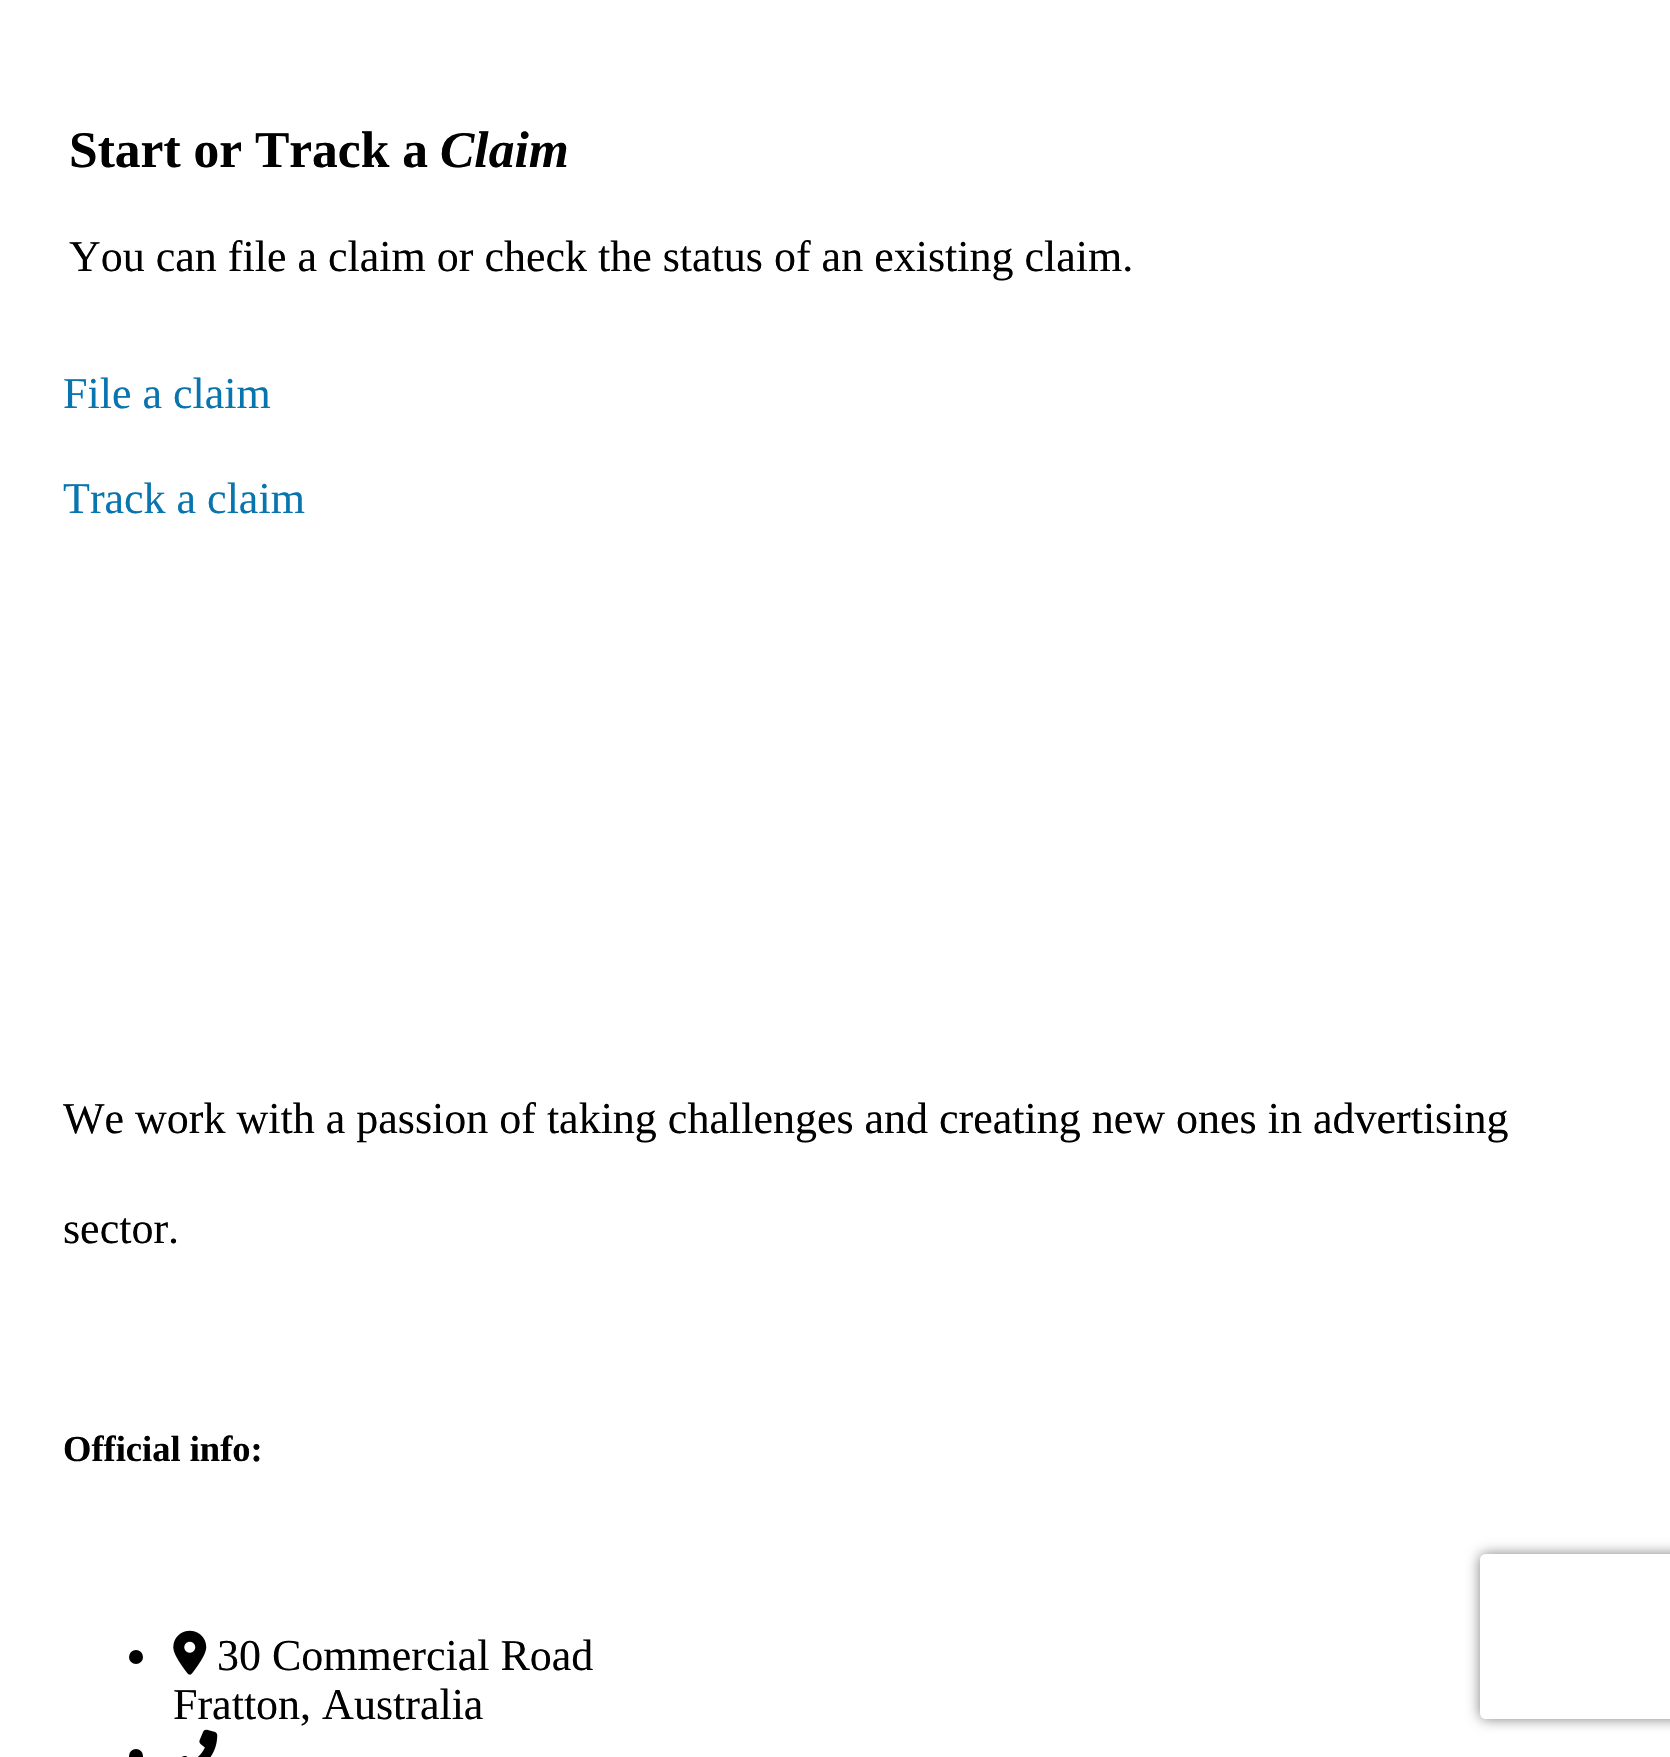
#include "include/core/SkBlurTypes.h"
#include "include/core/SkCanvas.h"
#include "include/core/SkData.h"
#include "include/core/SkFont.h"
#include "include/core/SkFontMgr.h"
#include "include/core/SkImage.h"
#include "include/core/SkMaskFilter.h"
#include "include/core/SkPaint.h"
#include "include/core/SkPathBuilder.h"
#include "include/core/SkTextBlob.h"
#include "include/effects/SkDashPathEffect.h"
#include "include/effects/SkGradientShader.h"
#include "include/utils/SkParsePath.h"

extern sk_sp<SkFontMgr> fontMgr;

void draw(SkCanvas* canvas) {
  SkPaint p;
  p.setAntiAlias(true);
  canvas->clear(SK_ColorWHITE);
  p.setColor(SK_ColorBLACK);
  canvas->drawCircle(136, 1657, 7, p);
  canvas->drawImageRect(SkImages::DeferredFromEncodedData(SkData::MakeFromFileName("images/1.png")), SkRect::MakeLTRB(173, 1630, 207, 1675), SkSamplingOptions());
  canvas->drawCircle(136, 1756, 7, p);
  canvas->drawImageRect(SkImages::DeferredFromEncodedData(SkData::MakeFromFileName("images/2.png")), SkRect::MakeLTRB(181, 1729, 218, 1757), SkSamplingOptions());
  canvas->save();
  canvas->clipPath(SkPathBuilder(SkPathFillType::kEvenOdd).moveTo(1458, 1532).lineTo(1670, 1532).lineTo(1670, 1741).lineTo(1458, 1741).close().moveTo(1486, 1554).lineTo(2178, 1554).cubicTo(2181.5f, 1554, 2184, 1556.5f, 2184, 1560).lineTo(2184, 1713).cubicTo(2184, 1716.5f, 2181.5f, 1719, 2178, 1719).lineTo(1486, 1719).cubicTo(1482.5f, 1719, 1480, 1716.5f, 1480, 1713).lineTo(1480, 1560).cubicTo(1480, 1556.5f, 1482.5f, 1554, 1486, 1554).close().detach(), true);
  p.setColor(SkColorSetRGB(128, 128, 128));
  p.setMaskFilter(SkMaskFilter::MakeBlur(kNormal_SkBlurStyle, 7));
  canvas->drawRoundRect(SkRect::MakeLTRB(1480, 1554, 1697, 1719), 6, 6, p);
  p.setMaskFilter(nullptr);
  canvas->restore();
  SkFont font1(fontMgr->matchFamilyStyle("Liberation Serif", SkFontStyle::Bold()), 51.5f);
  font1.setSubpixel(true);
  p.setColor(SK_ColorBLACK);
  canvas->drawString("Start or Track a", 69, 167, font1, p);
  SkFont font2(fontMgr->matchFamilyStyle("Liberation Serif", SkFontStyle::BoldItalic()), 51.5f);
  font2.setSubpixel(true);
  canvas->drawString("Claim", 440, 167, font2, p);
  SkFont font3(fontMgr->matchFamilyStyle("Liberation Serif", SkFontStyle::Normal()), 44);
  font3.setSubpixel(true);
  canvas->drawString("You can file a claim or check the status of an existing claim.", 69, 271, font3, p);
  p.setColor(SkColorSetRGB(8, 117, 175));
  canvas->drawString("File a claim", 63, 408, font3, p);
  canvas->drawString("Track a claim", 63, 513, font3, p);
  p.setColor(SK_ColorBLACK);
  canvas->drawString("We work with a passion of taking challenges and creating new ones in advertising", 63, 1133, font3, p);
  canvas->drawString("sector.", 63, 1243, font3, p);
  SkFont font4(fontMgr->matchFamilyStyle("Liberation Serif", SkFontStyle::Bold()), 36.5f);
  font4.setSubpixel(true);
  canvas->drawString("Official info:", 63, 1461, font4, p);
  canvas->drawString("30 Commercial Road", 217, 1670, font3, p);
  canvas->drawString("Fratton, Australia", 173, 1719, font3, p);
}
